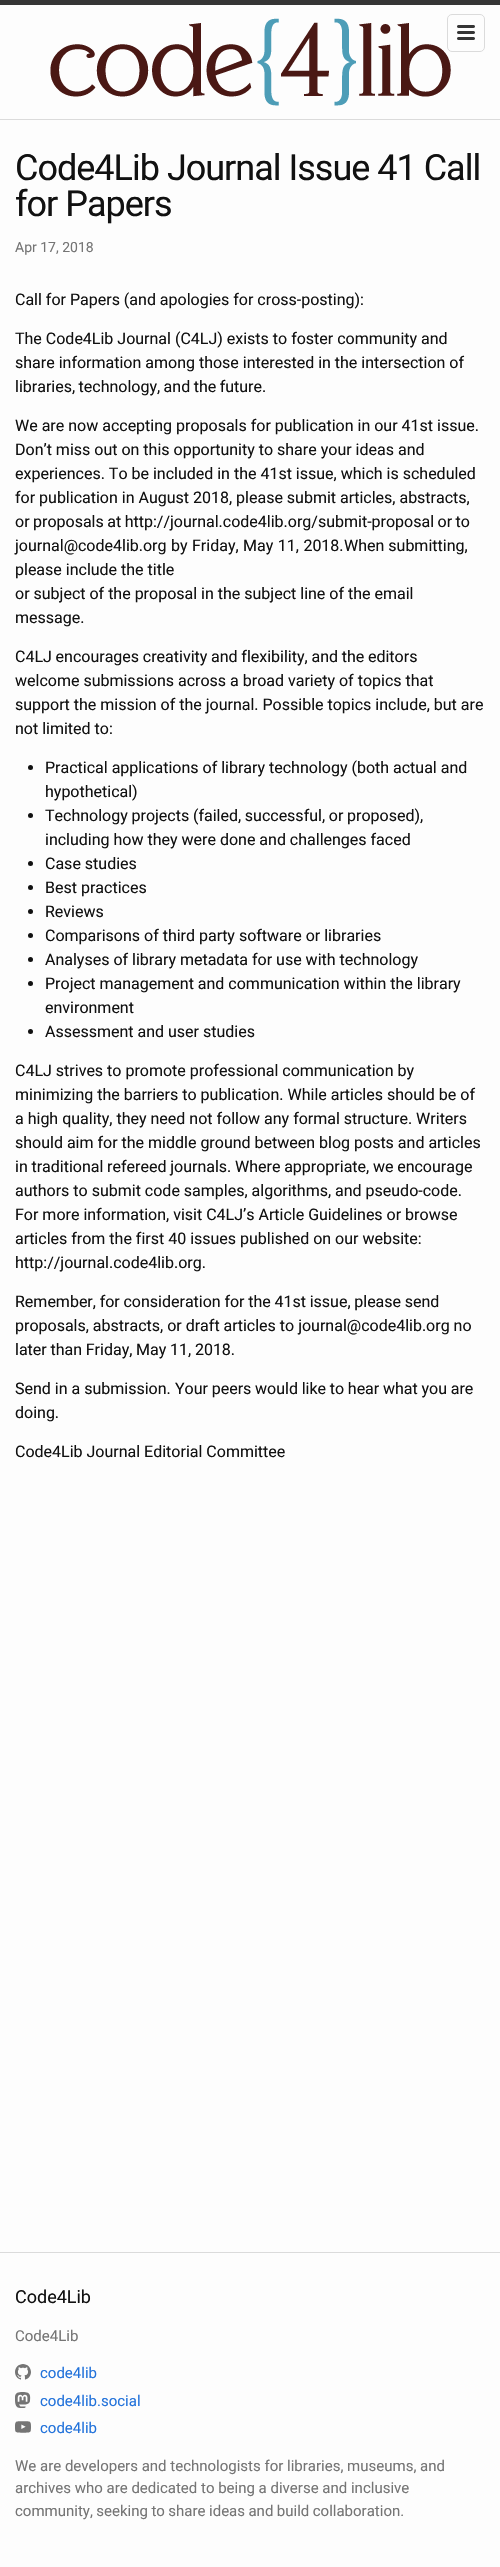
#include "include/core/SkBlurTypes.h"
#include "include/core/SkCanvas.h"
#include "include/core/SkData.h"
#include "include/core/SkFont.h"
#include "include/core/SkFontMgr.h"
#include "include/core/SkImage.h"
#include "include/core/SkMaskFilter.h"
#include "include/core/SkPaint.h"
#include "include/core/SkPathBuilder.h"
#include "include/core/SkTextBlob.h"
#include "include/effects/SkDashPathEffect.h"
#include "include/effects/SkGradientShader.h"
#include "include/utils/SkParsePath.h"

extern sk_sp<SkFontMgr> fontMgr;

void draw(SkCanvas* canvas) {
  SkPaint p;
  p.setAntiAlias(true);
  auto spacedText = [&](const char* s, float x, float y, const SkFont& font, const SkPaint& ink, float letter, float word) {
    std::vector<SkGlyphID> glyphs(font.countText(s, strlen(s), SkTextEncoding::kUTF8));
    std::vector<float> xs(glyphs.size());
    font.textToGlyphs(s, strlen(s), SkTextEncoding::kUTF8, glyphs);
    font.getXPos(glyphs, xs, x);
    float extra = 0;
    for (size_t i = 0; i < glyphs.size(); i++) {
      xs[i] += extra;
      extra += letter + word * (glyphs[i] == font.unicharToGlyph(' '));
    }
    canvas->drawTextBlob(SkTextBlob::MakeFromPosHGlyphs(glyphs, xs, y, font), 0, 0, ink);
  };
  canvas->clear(SkColorSetRGB(253, 253, 253));
  p.setColor(SkColorSetRGB(53, 53, 53));
  canvas->drawRect(SkRect::MakeLTRB(0, 0, 500, 5), p);
  p.setColor(SkColorSetRGB(219, 219, 219));
  canvas->drawRect(SkRect::MakeLTRB(0, 119, 500, 120), p);
  canvas->drawImageRect(SkImages::DeferredFromEncodedData(SkData::MakeFromFileName("images/1.png")), SkRect::MakeLTRB(50, 18, 451, 106), SkSamplingOptions());
  p.setStyle(SkPaint::kStroke_Style);
  p.setStrokeWidth(1);
  canvas->drawRoundRect(SkRect::MakeLTRB(447.5f, 14.5f, 484.5f, 51.5f), 4.5f, 4.5f, p);
  canvas->drawImageRect(SkImages::DeferredFromEncodedData(SkData::MakeFromFileName("images/2.png")), SkRect::MakeLTRB(457, 25, 475, 40), SkSamplingOptions());
  p.setStyle(SkPaint::kFill_Style);
  p.setColor(SkColorSetRGB(17, 17, 17));
  canvas->drawCircle(30.5f, 767.5f, 2.5f, p);
  canvas->drawCircle(30.5f, 815.5f, 2.5f, p);
  canvas->drawCircle(30.5f, 863.5f, 2.5f, p);
  canvas->drawCircle(30.5f, 887.5f, 2.5f, p);
  canvas->drawCircle(30.5f, 911.5f, 2.5f, p);
  canvas->drawCircle(30.5f, 935.5f, 2.5f, p);
  canvas->drawCircle(30.5f, 959.5f, 2.5f, p);
  canvas->drawCircle(30.5f, 983.5f, 2.5f, p);
  canvas->drawCircle(30.5f, 1031.5f, 2.5f, p);
  p.setColor(SkColorSetRGB(219, 219, 219));
  canvas->drawRect(SkRect::MakeLTRB(0, 2252, 500, 2253), p);
  canvas->drawImageRect(SkImages::DeferredFromEncodedData(SkData::MakeFromFileName("images/3.png")), SkRect::MakeLTRB(15, 2364, 31, 2380), SkSamplingOptions());
  canvas->drawImageRect(SkImages::DeferredFromEncodedData(SkData::MakeFromFileName("images/4.png")), SkRect::MakeLTRB(15, 2392, 31, 2408), SkSamplingOptions());
  canvas->drawImageRect(SkImages::DeferredFromEncodedData(SkData::MakeFromFileName("images/5.png")), SkRect::MakeLTRB(15, 2421, 31, 2433), SkSamplingOptions());
  SkFont font1(fontMgr->matchFamilyStyle("Roboto", SkFontStyle::Normal()), 36);
  font1.setSubpixel(true);
  p.setColor(SkColorSetRGB(17, 17, 17));
  spacedText("Code4Lib Journal Issue 41 Call", 15, 180, font1, p, -1, 0);
  spacedText("for Papers", 15, 216, font1, p, -1, 0);
  SkFont font2(fontMgr->matchFamilyStyle("Roboto", SkFontStyle::Normal()), 14);
  font2.setSubpixel(true);
  p.setColor(SkColorSetRGB(117, 117, 117));
  canvas->drawString("Apr 17, 2018", 15, 252, font2, p);
  SkFont font3(fontMgr->matchFamilyStyle("Roboto", SkFontStyle::Normal()), 16);
  font3.setSubpixel(true);
  p.setColor(SkColorSetRGB(17, 17, 17));
  canvas->drawString("Call for Papers (and apologies for cross-posting):", 15, 305, font3, p);
  canvas->drawString("The Code4Lib Journal (C4LJ) exists to foster community and", 15, 344, font3, p);
  canvas->drawString("share information among those interested in the intersection of", 15, 368, font3, p);
  spacedText("libraries, technology, and the future.", 15, 392, font3, p, 0, -0.5f);
  canvas->drawString("We are now accepting proposals for publication in our 41st issue.", 15, 431, font3, p);
  canvas->drawString("Don’t miss out on this opportunity to share your ideas and", 15, 455, font3, p);
  canvas->drawString("experiences. To be included in the 41st issue, which is scheduled", 15, 479, font3, p);
  canvas->drawString("for publication in August 2018, please submit articles, abstracts,", 15, 503, font3, p);
  spacedText("or proposals at http://journal.code4lib.org/submit-proposal or to", 15, 527, font3, p, 0, -0.5f);
  spacedText("journal@code4lib.org by Friday, May 11, 2018.", 15, 551, font3, p, 0, 0.5f);
  canvas->drawString("When submitting,", 344, 551, font3, p);
  canvas->drawString("please include the title", 15, 575, font3, p);
  canvas->drawString("or subject of the proposal in the subject line of the email", 15, 599, font3, p);
  canvas->drawString("message.", 15, 623, font3, p);
  spacedText("C4LJ encourages creativity and flexibility, and the editors", 15, 662, font3, p, 0, -0.25f);
  canvas->drawString("welcome submissions across a broad variety of topics that", 15, 686, font3, p);
  canvas->drawString("support the mission of the journal. Possible topics include, but are", 15, 710, font3, p);
  canvas->drawString("not limited to:", 15, 734, font3, p);
  canvas->drawString("Practical applications of library technology (both actual and", 45, 773, font3, p);
  canvas->drawString("hypothetical)", 45, 797, font3, p);
  spacedText("Technology projects (failed, successful, or proposed),", 45, 821, font3, p, 0, -0.25f);
  canvas->drawString("including how they were done and challenges faced", 45, 845, font3, p);
  canvas->drawString("Case studies", 45, 869, font3, p);
  canvas->drawString("Best practices", 45, 893, font3, p);
  canvas->drawString("Reviews", 45, 917, font3, p);
  canvas->drawString("Comparisons of third party software or libraries", 45, 941, font3, p);
  canvas->drawString("Analyses of library metadata for use with technology", 45, 965, font3, p);
  canvas->drawString("Project management and communication within the library", 45, 989, font3, p);
  canvas->drawString("environment", 45, 1013, font3, p);
  canvas->drawString("Assessment and user studies", 45, 1037, font3, p);
  canvas->drawString("C4LJ strives to promote professional communication by", 15, 1076, font3, p);
  canvas->drawString("minimizing the barriers to publication. While articles should be of", 15, 1100, font3, p);
  canvas->drawString("a high quality, they need not follow any formal structure. Writers", 15, 1124, font3, p);
  canvas->drawString("should aim for the middle ground between blog posts and articles", 15, 1148, font3, p);
  spacedText("in traditional refereed journals. Where appropriate, we encourage", 15, 1172, font3, p, 0, -0.25f);
  canvas->drawString("authors to submit code samples, algorithms, and pseudo-code.", 15, 1196, font3, p);
  canvas->drawString("For more information, visit C4LJ’s Article Guidelines or browse", 15, 1220, font3, p);
  canvas->drawString("articles from the first 40 issues published on our website:", 15, 1244, font3, p);
  canvas->drawString("http://journal.code4lib.org.", 15, 1268, font3, p);
  spacedText("Remember, for consideration for the 41st issue, please send", 15, 1307, font3, p, 0, -0.25f);
  canvas->drawString("proposals, abstracts, or draft articles to journal@code4lib.org no", 15, 1331, font3, p);
  spacedText("later than Friday, May 11, 2018.", 15, 1355, font3, p, 0, -0.25f);
  canvas->drawString("Send in a submission.", 15, 1394, font3, p);
  spacedText("Your peers would like to hear what you are", 175, 1394, font3, p, 0, -0.25f);
  canvas->drawString("doing.", 15, 1418, font3, p);
  canvas->drawString("Code4Lib Journal Editorial Committee", 15, 1457, font3, p);
  SkFont font4(fontMgr->matchFamilyStyle("Roboto", SkFontStyle::Normal()), 18);
  font4.setSubpixel(true);
  canvas->drawString("Code4Lib", 15, 2303, font4, p);
  SkFont font5(fontMgr->matchFamilyStyle("Roboto", SkFontStyle::Normal()), 15);
  font5.setSubpixel(true);
  p.setColor(SkColorSetRGB(117, 117, 117));
  canvas->drawString("Code4Lib", 15, 2341, font5, p);
  p.setColor(SkColorSetRGB(35, 115, 219));
  canvas->drawString("code4lib", 40, 2378, font5, p);
  canvas->drawString("code4lib.social", 40, 2406, font5, p);
  canvas->drawString("code4lib", 40, 2433, font5, p);
  p.setColor(SkColorSetRGB(117, 117, 117));
  canvas->drawString("We are developers and technologists for libraries, museums, and", 15, 2471, font5, p);
  canvas->drawString("archives who are dedicated to being a diverse and inclusive", 15, 2493, font5, p);
  spacedText("community, seeking to share ideas and build collaboration.", 15, 2516, font5, p, 0, -0.25f);
}
